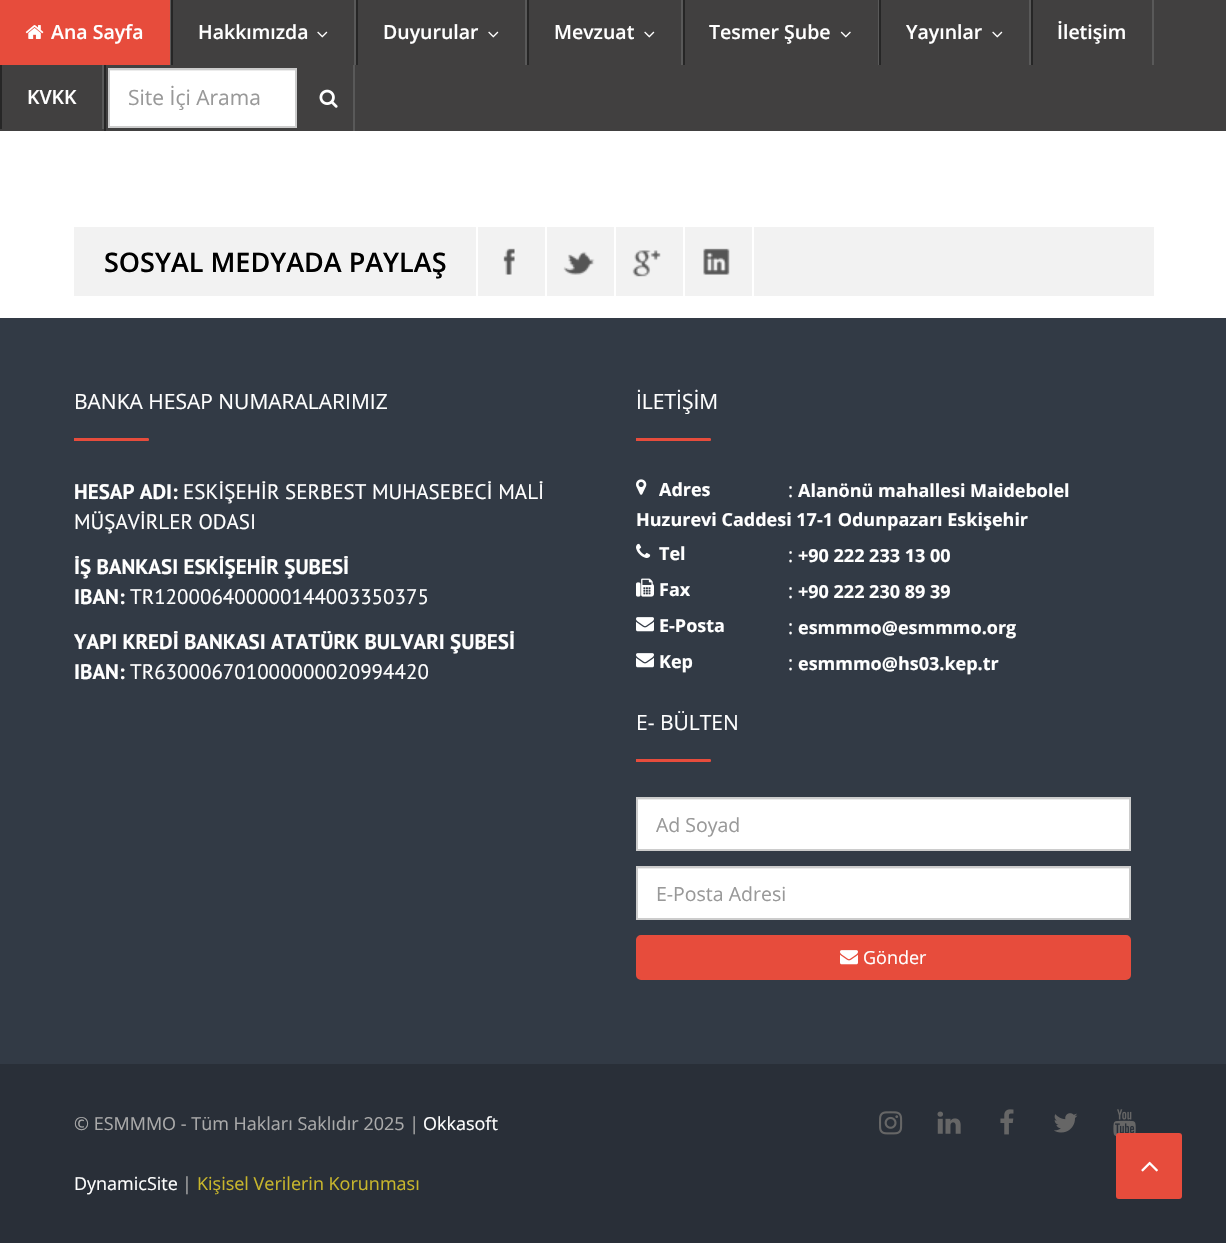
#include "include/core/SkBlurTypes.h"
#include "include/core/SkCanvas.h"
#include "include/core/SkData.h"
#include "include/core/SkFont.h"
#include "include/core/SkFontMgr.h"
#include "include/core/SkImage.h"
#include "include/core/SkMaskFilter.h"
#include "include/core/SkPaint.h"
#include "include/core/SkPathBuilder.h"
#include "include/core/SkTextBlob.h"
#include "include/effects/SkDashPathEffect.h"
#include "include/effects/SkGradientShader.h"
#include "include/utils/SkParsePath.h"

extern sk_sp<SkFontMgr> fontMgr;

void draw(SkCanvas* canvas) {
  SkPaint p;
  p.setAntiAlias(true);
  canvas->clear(SK_ColorWHITE);
  p.setColor(SkColorSetRGB(65, 64, 64));
  canvas->drawRect(SkRect::MakeLTRB(0, 0, 1226, 131), p);
  p.setColor(SkColorSetRGB(89, 89, 89));
  canvas->drawRect(SkRect::MakeLTRB(170, 0, 171, 65), p);
  p.setColor(SkColorSetRGB(231, 76, 60));
  canvas->drawRect(SkRect::MakeLTRB(0, 0, 170, 65), p);
  canvas->drawImageRect(SkImages::DeferredFromEncodedData(SkData::MakeFromFileName("images/1.png")), SkRect::MakeLTRB(25, 25, 44, 39), SkSamplingOptions());
  p.setColor(SkColorSetRGB(89, 89, 89));
  canvas->drawRect(SkRect::MakeLTRB(354, 0, 356, 65), p);
  p.setColor(SkColorSetRGB(38, 38, 38));
  canvas->drawRect(SkRect::MakeLTRB(171, 0, 173, 65), p);
  canvas->drawImageRect(SkImages::DeferredFromEncodedData(SkData::MakeFromFileName("images/2.png")), SkRect::MakeLTRB(317, 31, 328, 38), SkSamplingOptions());
  p.setColor(SkColorSetRGB(89, 89, 89));
  canvas->drawRect(SkRect::MakeLTRB(525, 0, 527, 65), p);
  p.setColor(SkColorSetRGB(38, 38, 38));
  canvas->drawRect(SkRect::MakeLTRB(356, 0, 358, 65), p);
  canvas->drawImageRect(SkImages::DeferredFromEncodedData(SkData::MakeFromFileName("images/2.png")), SkRect::MakeLTRB(488, 31, 499, 38), SkSamplingOptions());
  p.setColor(SkColorSetRGB(89, 89, 89));
  canvas->drawRect(SkRect::MakeLTRB(681, 0, 683, 65), p);
  p.setColor(SkColorSetRGB(38, 38, 38));
  canvas->drawRect(SkRect::MakeLTRB(527, 0, 529, 65), p);
  canvas->drawImageRect(SkImages::DeferredFromEncodedData(SkData::MakeFromFileName("images/2.png")), SkRect::MakeLTRB(644, 31, 655, 38), SkSamplingOptions());
  p.setColor(SkColorSetRGB(89, 89, 89));
  canvas->drawRect(SkRect::MakeLTRB(878, 0, 879, 65), p);
  p.setColor(SkColorSetRGB(38, 38, 38));
  canvas->drawRect(SkRect::MakeLTRB(683, 0, 685, 65), p);
  canvas->drawImageRect(SkImages::DeferredFromEncodedData(SkData::MakeFromFileName("images/3.png")), SkRect::MakeLTRB(840, 31, 851, 38), SkSamplingOptions());
  p.setColor(SkColorSetRGB(89, 89, 89));
  canvas->drawRect(SkRect::MakeLTRB(1029, 0, 1031, 65), p);
  p.setColor(SkColorSetRGB(38, 38, 38));
  canvas->drawRect(SkRect::MakeLTRB(879, 0, 881, 65), p);
  canvas->drawImageRect(SkImages::DeferredFromEncodedData(SkData::MakeFromFileName("images/2.png")), SkRect::MakeLTRB(992, 31, 1003, 38), SkSamplingOptions());
  p.setColor(SkColorSetRGB(89, 89, 89));
  canvas->drawRect(SkRect::MakeLTRB(1152, 0, 1154, 65), p);
  p.setColor(SkColorSetRGB(38, 38, 38));
  canvas->drawRect(SkRect::MakeLTRB(1031, 0, 1033, 65), p);
  p.setColor(SkColorSetRGB(89, 89, 89));
  canvas->drawRect(SkRect::MakeLTRB(102, 65, 104, 129), p);
  p.setColor(SkColorSetRGB(38, 38, 38));
  canvas->drawRect(SkRect::MakeLTRB(0, 65, 2, 129), p);
  p.setColor(SkColorSetRGB(89, 89, 89));
  canvas->drawRect(SkRect::MakeLTRB(353, 65, 355, 131), p);
  p.setColor(SkColorSetRGB(38, 38, 38));
  canvas->drawRect(SkRect::MakeLTRB(104, 65, 106, 131), p);
  p.setColor(SK_ColorWHITE);
  canvas->drawRect(SkRect::MakeLTRB(110, 71, 295, 126), p);
  p.setColor(SkColorSetRGB(236, 236, 236));
  canvas->drawRect(SkRect::MakeLTRB(110, 70, 296, 71), p);
  p.setStyle(SkPaint::kStroke_Style);
  p.setStrokeWidth(2);
  p.setColor(SkColorSetRGB(204, 204, 204));
  canvas->drawRect(SkRect::MakeLTRB(109, 69, 296, 127), p);
  canvas->drawImageRect(SkImages::DeferredFromEncodedData(SkData::MakeFromFileName("images/4.png")), SkRect::MakeLTRB(319, 89, 338, 108), SkSamplingOptions());
  p.setStyle(SkPaint::kFill_Style);
  p.setColor(SkColorSetRGB(242, 242, 242));
  canvas->drawRect(SkRect::MakeLTRB(74, 227, 1154, 296), p);
  p.setColor(SK_ColorWHITE);
  canvas->drawRect(SkRect::MakeLTRB(476, 227, 478, 296), p);
  canvas->drawRect(SkRect::MakeLTRB(545, 227, 547, 296), p);
  canvas->drawImageRect(SkImages::DeferredFromEncodedData(SkData::MakeFromFileName("images/5.png")), SkRect::MakeLTRB(503, 248, 515, 275), SkSamplingOptions());
  canvas->drawRect(SkRect::MakeLTRB(614, 227, 616, 296), p);
  canvas->drawImageRect(SkImages::DeferredFromEncodedData(SkData::MakeFromFileName("images/6.png")), SkRect::MakeLTRB(563, 251, 595, 275), SkSamplingOptions());
  canvas->drawRect(SkRect::MakeLTRB(683, 227, 685, 296), p);
  canvas->drawImageRect(SkImages::DeferredFromEncodedData(SkData::MakeFromFileName("images/7.png")), SkRect::MakeLTRB(632, 250, 661, 277), SkSamplingOptions());
  canvas->drawRect(SkRect::MakeLTRB(752, 227, 754, 296), p);
  canvas->drawImageRect(SkImages::DeferredFromEncodedData(SkData::MakeFromFileName("images/8.png")), SkRect::MakeLTRB(703, 248, 730, 275), SkSamplingOptions());
  p.setColor(SkColorSetRGB(50, 58, 69));
  canvas->drawRect(SkRect::MakeLTRB(0, 318, 1226, 1064), p);
  p.setColor(SkColorSetRGB(231, 76, 60));
  canvas->drawPath(SkPathBuilder().moveTo(74, 438).lineTo(147.5f, 438).cubicTo(148.5f, 438, 149, 438.5f, 149, 439.5f).cubicTo(149, 440.5f, 148.5f, 441, 147.5f, 441).lineTo(74, 441).close().detach(), p);
  canvas->drawPath(SkPathBuilder().moveTo(636, 438).lineTo(709.5f, 438).cubicTo(710.5f, 438, 711, 438.5f, 711, 439.5f).cubicTo(711, 440.5f, 710.5f, 441, 709.5f, 441).lineTo(636, 441).close().detach(), p);
  canvas->drawImageRect(SkImages::DeferredFromEncodedData(SkData::MakeFromFileName("images/9.png")), SkRect::MakeLTRB(636, 479, 647, 495), SkSamplingOptions());
  canvas->drawImageRect(SkImages::DeferredFromEncodedData(SkData::MakeFromFileName("images/10.png")), SkRect::MakeLTRB(636, 543, 651, 558), SkSamplingOptions());
  canvas->drawImageRect(SkImages::DeferredFromEncodedData(SkData::MakeFromFileName("images/11.png")), SkRect::MakeLTRB(636, 578, 654, 597), SkSamplingOptions());
  canvas->drawImageRect(SkImages::DeferredFromEncodedData(SkData::MakeFromFileName("images/12.png")), SkRect::MakeLTRB(636, 617, 654, 632), SkSamplingOptions());
  canvas->drawImageRect(SkImages::DeferredFromEncodedData(SkData::MakeFromFileName("images/12.png")), SkRect::MakeLTRB(636, 653, 654, 668), SkSamplingOptions());
  canvas->drawPath(SkPathBuilder().moveTo(636, 759).lineTo(709.5f, 759).cubicTo(710.5f, 759, 711, 759.5f, 711, 760.5f).cubicTo(711, 761.5f, 710.5f, 762, 709.5f, 762).lineTo(636, 762).close().detach(), p);
  p.setColor(SK_ColorWHITE);
  canvas->drawRect(SkRect::MakeLTRB(638, 800, 1129, 849), p);
  p.setColor(SkColorSetRGB(236, 236, 236));
  canvas->drawRect(SkRect::MakeLTRB(638, 799, 1130, 800), p);
  p.setStyle(SkPaint::kStroke_Style);
  p.setColor(SkColorSetRGB(204, 204, 204));
  canvas->drawRect(SkRect::MakeLTRB(637, 798, 1130, 850), p);
  p.setStyle(SkPaint::kFill_Style);
  p.setColor(SK_ColorWHITE);
  canvas->drawRect(SkRect::MakeLTRB(638, 869, 1129, 918), p);
  p.setColor(SkColorSetRGB(236, 236, 236));
  canvas->drawRect(SkRect::MakeLTRB(638, 868, 1130, 869), p);
  p.setStyle(SkPaint::kStroke_Style);
  p.setColor(SkColorSetRGB(204, 204, 204));
  canvas->drawRect(SkRect::MakeLTRB(637, 867, 1130, 919), p);
  p.setStyle(SkPaint::kFill_Style);
  p.setColor(SkColorSetRGB(231, 76, 60));
  canvas->drawRoundRect(SkRect::MakeLTRB(637, 936, 1130, 979), 4, 4, p);
  p.setStyle(SkPaint::kStroke_Style);
  canvas->drawRoundRect(SkRect::MakeLTRB(637, 936, 1130, 979), 4, 4, p);
  canvas->drawImageRect(SkImages::DeferredFromEncodedData(SkData::MakeFromFileName("images/13.png")), SkRect::MakeLTRB(840, 950, 858, 965), SkSamplingOptions());
  p.setStyle(SkPaint::kFill_Style);
  p.setColor(SkColorSetRGB(41, 47, 56));
  canvas->drawRect(SkRect::MakeLTRB(0, 1064, 1226, 1243), p);
  canvas->drawImageRect(SkImages::DeferredFromEncodedData(SkData::MakeFromFileName("images/14.png")), SkRect::MakeLTRB(879, 1111, 903, 1135), SkSamplingOptions());
  canvas->drawImageRect(SkImages::DeferredFromEncodedData(SkData::MakeFromFileName("images/15.png")), SkRect::MakeLTRB(937, 1111, 961, 1134), SkSamplingOptions());
  canvas->drawImageRect(SkImages::DeferredFromEncodedData(SkData::MakeFromFileName("images/16.png")), SkRect::MakeLTRB(1000, 1109, 1014, 1135), SkSamplingOptions());
  canvas->drawImageRect(SkImages::DeferredFromEncodedData(SkData::MakeFromFileName("images/17.png")), SkRect::MakeLTRB(1054, 1113, 1078, 1133), SkSamplingOptions());
  canvas->drawImageRect(SkImages::DeferredFromEncodedData(SkData::MakeFromFileName("images/18.png")), SkRect::MakeLTRB(1113, 1109, 1136, 1136), SkSamplingOptions());
  p.setColor(SkColorSetRGB(231, 76, 60));
  canvas->drawRoundRect(SkRect::MakeLTRB(1116, 1133, 1182, 1199), 3, 3, p);
  canvas->drawImageRect(SkImages::DeferredFromEncodedData(SkData::MakeFromFileName("images/19.png")), SkRect::MakeLTRB(1141, 1161, 1158, 1172), SkSamplingOptions());
  SkFont font1(fontMgr->matchFamilyStyle("Open Sans", SkFontStyle(600, SkFontStyle::kNormal_Width, SkFontStyle::kUpright_Slant)), 19.5f);
  font1.setSubpixel(true);
  p.setColor(SK_ColorWHITE);
  canvas->drawString("Ana Sayfa", 51, 39, font1, p);
  canvas->drawString("Hakkımızda", 198, 39, font1, p);
  canvas->drawString("Duyurular", 383, 39, font1, p);
  canvas->drawString("Mevzuat", 554, 39, font1, p);
  canvas->drawString("Tesmer Şube", 709, 39, font1, p);
  canvas->drawString("Yayınlar", 906, 39, font1, p);
  canvas->drawString("İletişim", 1057, 39, font1, p);
  canvas->drawString("KVKK", 27, 104, font1, p);
  SkFont font2(fontMgr->matchFamilyStyle("Open Sans", SkFontStyle::Normal()), 21);
  font2.setSubpixel(true);
  p.setColor(SkColorSetRGB(153, 153, 153));
  canvas->drawString("Site İçi Arama", 128, 105, font2, p);
  SkFont font3(fontMgr->matchFamilyStyle("Open Sans", SkFontStyle(600, SkFontStyle::kNormal_Width, SkFontStyle::kUpright_Slant)), 27);
  font3.setSubpixel(true);
  p.setColor(SK_ColorBLACK);
  canvas->drawString("SOSYAL MEDYADA PAYLAŞ", 104, 272, font3, p);
  p.setColor(SK_ColorWHITE);
  canvas->drawString("BANKA HESAP NUMARALARIMIZ", 74, 409, font2, p);
  SkFont font4(fontMgr->matchFamilyStyle("PT Sans", SkFontStyle::Bold()), 21);
  font4.setSubpixel(true);
  canvas->drawString("HESAP ADI:", 74, 499, font4, p);
  SkFont font5(fontMgr->matchFamilyStyle("PT Sans", SkFontStyle::Normal()), 21);
  font5.setSubpixel(true);
  canvas->drawString("ESKİŞEHİR SERBEST MUHASEBECİ MALİ", 183, 499, font5, p);
  canvas->drawString("MÜŞAVİRLER ODASI", 74, 529, font5, p);
  canvas->drawString("İŞ BANKASI ESKİŞEHİR ŞUBESİ", 74, 574, font4, p);
  canvas->drawString("IBAN:", 74, 604, font4, p);
  canvas->drawString("TR120006400000144003350375", 130, 604, font5, p);
  canvas->drawString("YAPI KREDİ BANKASI ATATÜRK BULVARI ŞUBESİ", 74, 649, font4, p);
  canvas->drawString("IBAN:", 74, 679, font4, p);
  canvas->drawString("TR630006701000000020994420", 130, 679, font5, p);
  canvas->drawString("İLETİŞİM", 636, 409, font2, p);
  SkFont font6(fontMgr->matchFamilyStyle("Open Sans", SkFontStyle::Bold()), 18);
  font6.setSubpixel(true);
  canvas->drawString("Adres", 659, 496, font6, p);
  SkFont font7(fontMgr->matchFamilyStyle("Open Sans", SkFontStyle::Normal()), 19.5f);
  font7.setSubpixel(true);
  canvas->drawString(":", 788, 497, font7, p);
  canvas->drawString("Alanönü mahallesi Maidebolel", 798, 497, font6, p);
  canvas->drawString("Huzurevi Caddesi 17-1 Odunpazarı Eskişehir", 636, 526, font6, p);
  canvas->drawString("Tel", 659, 560, font6, p);
  canvas->drawString(":", 788, 562, font7, p);
  canvas->drawString("+90 222 233 13 00", 798, 562, font6, p);
  canvas->drawString("Fax", 659, 596, font6, p);
  canvas->drawString(":", 788, 598, font7, p);
  canvas->drawString("+90 222 230 89 39", 798, 598, font6, p);
  canvas->drawString("E-Posta", 659, 632, font6, p);
  canvas->drawString(":", 788, 634, font7, p);
  canvas->drawString("esmmmo@esmmmo.org", 798, 634, font6, p);
  canvas->drawString("Kep", 659, 668, font6, p);
  canvas->drawString(":", 788, 670, font7, p);
  canvas->drawString("esmmmo@hs03.kep.tr", 798, 670, font6, p);
  canvas->drawString("E- BÜLTEN", 636, 730, font2, p);
  p.setColor(SkColorSetRGB(153, 153, 153));
  canvas->drawString("Ad Soyad", 656, 832, font7, p);
  canvas->drawString("E-Posta Adresi", 656, 901, font7, p);
  SkFont font8(fontMgr->matchFamilyStyle("Open Sans", SkFontStyle::Normal()), 18);
  font8.setSubpixel(true);
  p.setColor(SK_ColorWHITE);
  canvas->drawString("Gönder", 863, 964, font8, p);
  p.setColor(SkColorSetRGB(170, 170, 170));
  canvas->drawString("© ESMMMO - Tüm Hakları Saklıdır 2025 |", 74, 1130, font8, p);
  p.setColor(SK_ColorWHITE);
  canvas->drawString("Okkasoft", 423, 1130, font8, p);
  canvas->drawString("DynamicSite", 74, 1190, font8, p);
  p.setColor(SkColorSetRGB(170, 170, 170));
  canvas->drawString("|", 182, 1190, font8, p);
  p.setColor(SkColorSetRGB(200, 182, 44));
  canvas->drawString("Kişisel Verilerin Korunması", 197, 1190, font8, p);
}
